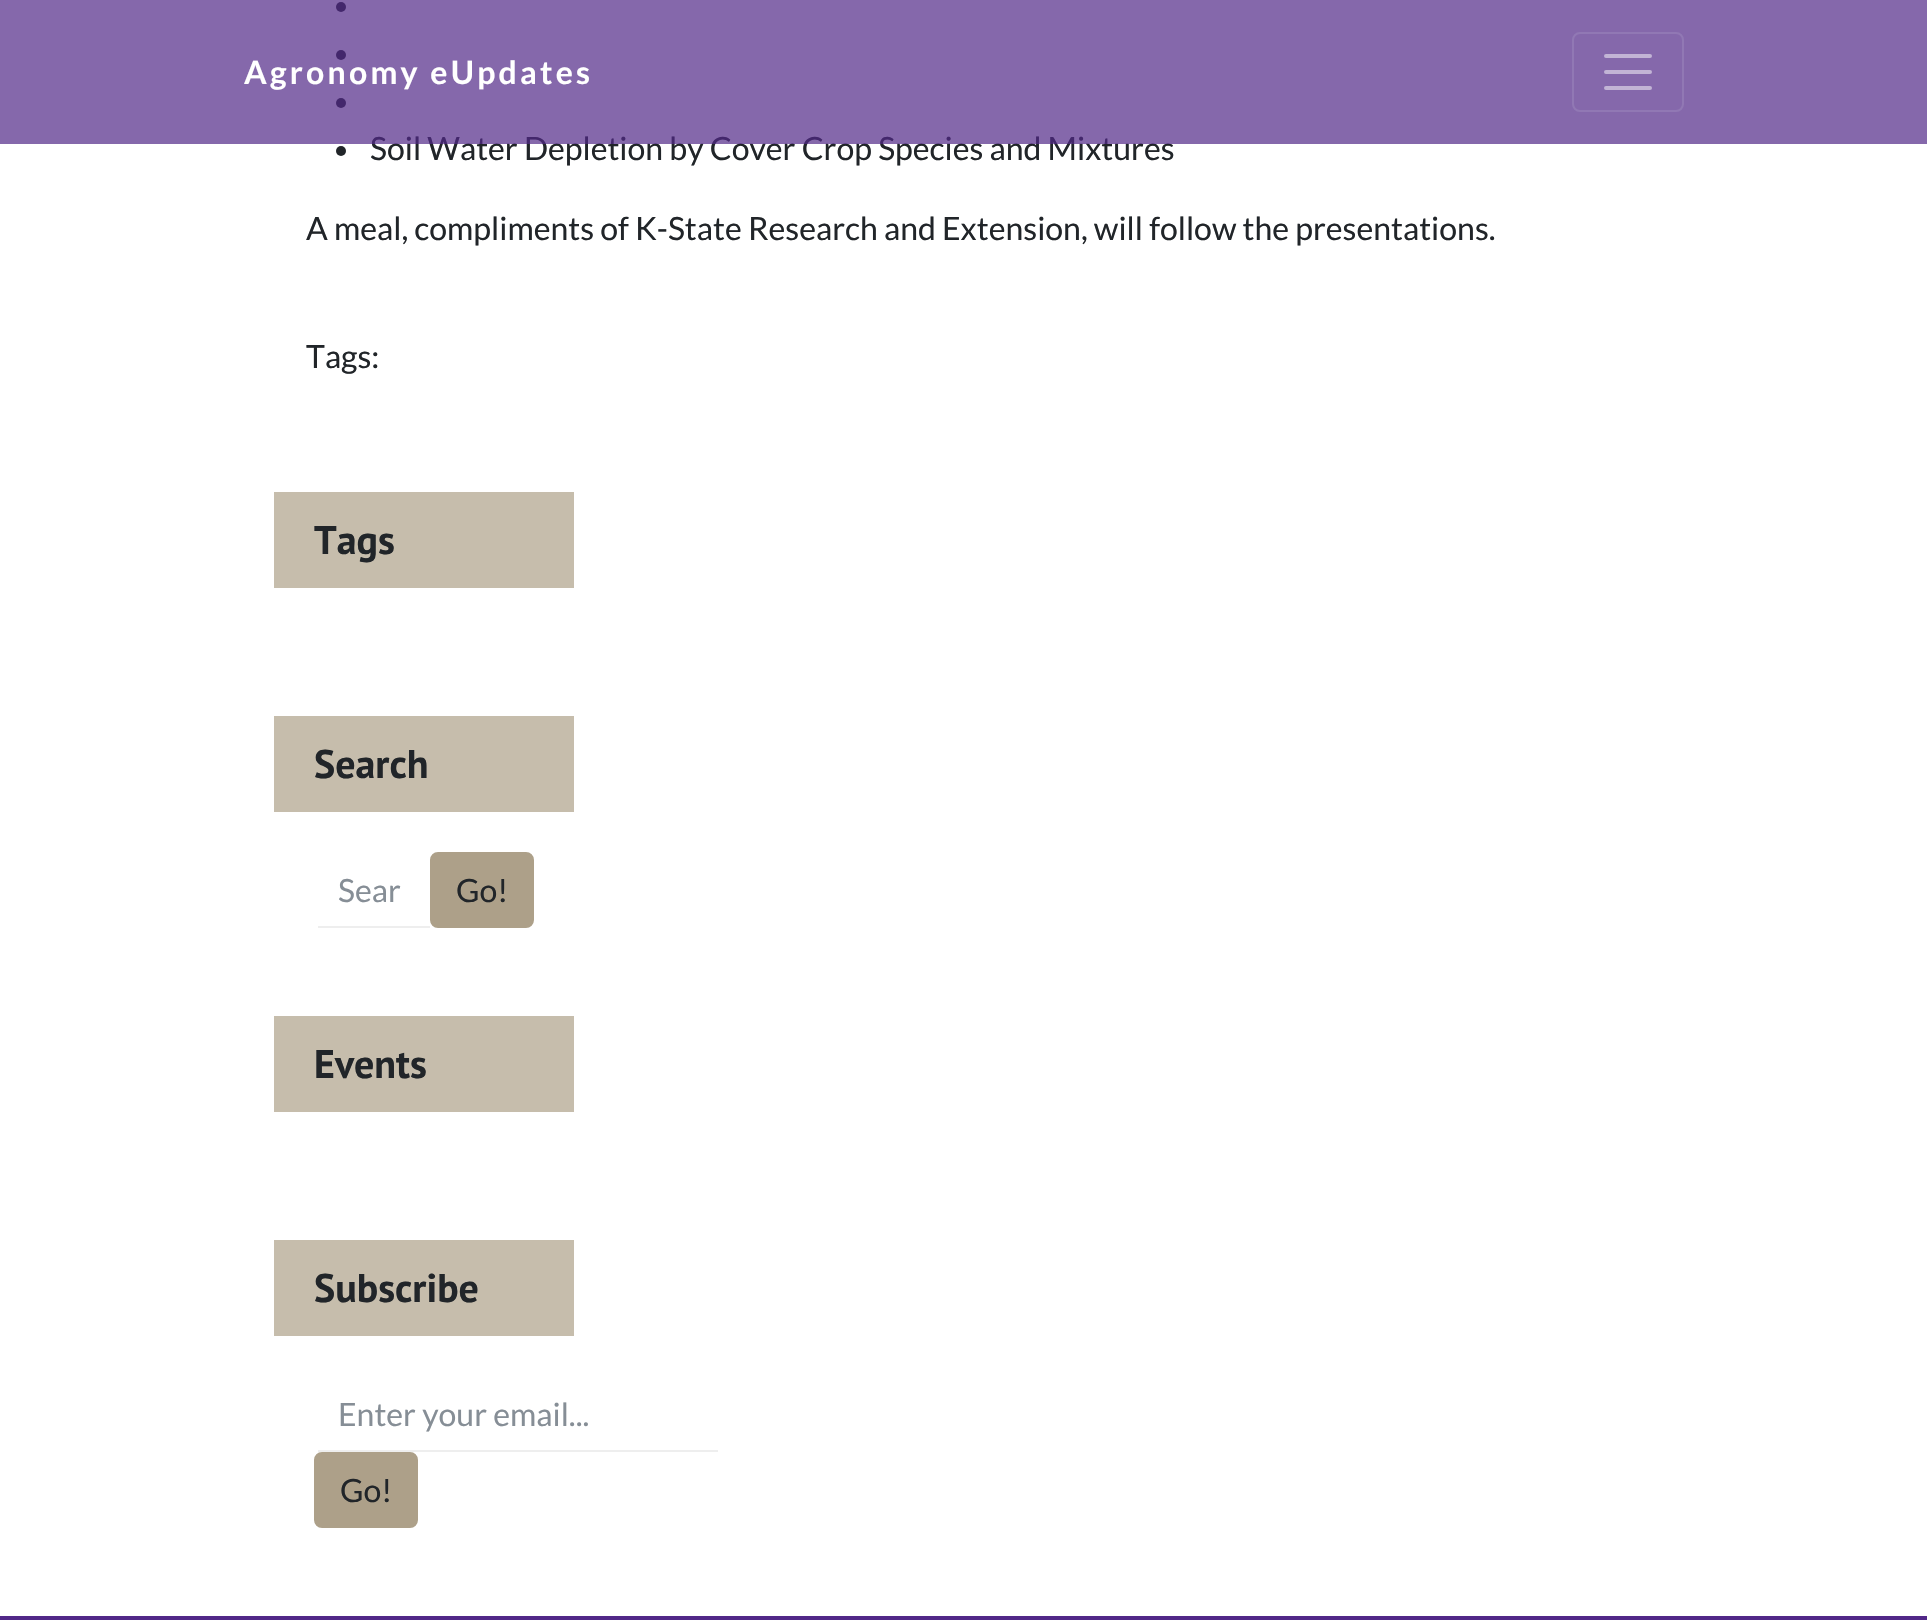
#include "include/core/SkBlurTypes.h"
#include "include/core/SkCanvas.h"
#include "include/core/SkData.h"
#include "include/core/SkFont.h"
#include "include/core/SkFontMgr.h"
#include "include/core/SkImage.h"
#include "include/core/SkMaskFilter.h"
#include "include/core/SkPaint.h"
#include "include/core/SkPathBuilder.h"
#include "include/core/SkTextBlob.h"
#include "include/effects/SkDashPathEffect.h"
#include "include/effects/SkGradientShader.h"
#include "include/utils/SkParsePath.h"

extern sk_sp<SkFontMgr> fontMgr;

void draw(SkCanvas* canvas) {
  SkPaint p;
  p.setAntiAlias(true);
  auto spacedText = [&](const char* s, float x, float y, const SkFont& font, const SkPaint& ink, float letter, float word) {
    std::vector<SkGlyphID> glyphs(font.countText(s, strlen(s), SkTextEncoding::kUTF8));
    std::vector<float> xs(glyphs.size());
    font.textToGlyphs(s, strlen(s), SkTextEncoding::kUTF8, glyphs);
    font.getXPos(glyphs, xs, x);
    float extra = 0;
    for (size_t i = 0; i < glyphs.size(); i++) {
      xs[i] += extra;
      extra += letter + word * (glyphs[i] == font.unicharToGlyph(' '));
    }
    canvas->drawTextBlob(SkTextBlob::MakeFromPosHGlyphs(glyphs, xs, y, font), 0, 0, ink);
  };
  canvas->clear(SK_ColorWHITE);
  p.setColor(SkColorSetRGB(33, 37, 41));
  canvas->drawCircle(341, 7, 5, p);
  canvas->drawCircle(341, 55, 5, p);
  canvas->drawCircle(341, 103, 5, p);
  canvas->drawCircle(341, 151, 5, p);
  p.setColor(SkColorSetRGB(198, 189, 172));
  canvas->drawRect(SkRect::MakeLTRB(274, 492, 574, 588), p);
  canvas->drawRect(SkRect::MakeLTRB(274, 716, 574, 812), p);
  p.setColor(SkColorSetRGB(238, 238, 238));
  canvas->drawRect(SkRect::MakeLTRB(318, 926, 430, 928), p);
  p.setColor(SkColorSetRGB(173, 160, 137));
  canvas->drawRoundRect(SkRect::MakeLTRB(431, 853, 533, 927), 7, 7, p);
  p.setStyle(SkPaint::kStroke_Style);
  p.setStrokeWidth(2);
  canvas->drawRoundRect(SkRect::MakeLTRB(431, 853, 533, 927), 7, 7, p);
  p.setStyle(SkPaint::kFill_Style);
  p.setColor(SkColorSetRGB(198, 189, 172));
  canvas->drawRect(SkRect::MakeLTRB(274, 1016, 574, 1112), p);
  canvas->drawRect(SkRect::MakeLTRB(274, 1240, 574, 1336), p);
  p.setColor(SkColorSetRGB(238, 238, 238));
  canvas->drawRect(SkRect::MakeLTRB(318, 1450, 718, 1452), p);
  p.setColor(SkColorSetRGB(173, 160, 137));
  canvas->drawRoundRect(SkRect::MakeLTRB(315, 1453, 417, 1527), 7, 7, p);
  p.setStyle(SkPaint::kStroke_Style);
  canvas->drawRoundRect(SkRect::MakeLTRB(315, 1453, 417, 1527), 7, 7, p);
  p.setStyle(SkPaint::kFill_Style);
  p.setColor(SkColorSetRGB(81, 40, 136));
  canvas->drawRect(SkRect::MakeLTRB(0, 1616, 1927, 1620), p);
  SkFont font1(fontMgr->matchFamilyStyle("Lato", SkFontStyle::Normal()), 32);
  font1.setSubpixel(true);
  p.setColor(SkColorSetRGB(33, 37, 41));
  canvas->drawString("Soil Water Depletion by Cover Crop Species and Mixtures", 370, 160, font1, p);
  p.setColor(SkColorSetARGB(179, 81, 40, 136));
  canvas->drawRect(SkRect::MakeLTRB(0, 0, 1927, 144), p);
  p.setStyle(SkPaint::kStroke_Style);
  p.setColor(SkColorSetRGB(145, 120, 180));
  canvas->drawRoundRect(SkRect::MakeLTRB(1573, 33, 1683, 111), 7, 7, p);
  p.setStrokeWidth(4);
  p.setStrokeCap(SkPaint::kRound_Cap);
  p.setColor(SkColorSetRGB(194, 180, 213));
  canvas->drawPath(SkPathBuilder().moveTo(1606, 56).lineTo(1650, 56).moveTo(1606, 72).lineTo(1650, 72).moveTo(1606, 88).lineTo(1650, 88).detach(), p);
  SkFont font2(fontMgr->matchFamilyStyle("Lato", SkFontStyle::Bold()), 32);
  font2.setSubpixel(true);
  p.setStyle(SkPaint::kFill_Style);
  p.setColor(SK_ColorWHITE);
  spacedText("Agronomy eUpdates", 244, 84, font2, p, 3.25f, 0);
  p.setColor(SkColorSetRGB(33, 37, 41));
  canvas->drawString("A meal, compliments of K-State Research and Extension, will follow the presentations.", 306, 240, font1, p);
  canvas->drawString("Tags:", 306, 368, font1, p);
  SkFont font3(fontMgr->matchFamilyStyle("PT Sans", SkFontStyle::Bold()), 40);
  font3.setSubpixel(true);
  canvas->drawString("Tags", 314, 554, font3, p);
  canvas->drawString("Search", 314, 778, font3, p);
  p.setColor(SkColorSetRGB(134, 142, 150));
  canvas->drawString("Sear", 338, 902, font1, p);
  p.setColor(SkColorSetRGB(33, 37, 41));
  canvas->drawString("Go!", 456, 902, font1, p);
  canvas->drawString("Events", 314, 1078, font3, p);
  canvas->drawString("Subscribe", 314, 1302, font3, p);
  p.setColor(SkColorSetRGB(134, 142, 150));
  canvas->drawString("Enter your email...", 338, 1426, font1, p);
  p.setColor(SkColorSetRGB(33, 37, 41));
  canvas->drawString("Go!", 340, 1502, font1, p);
}
